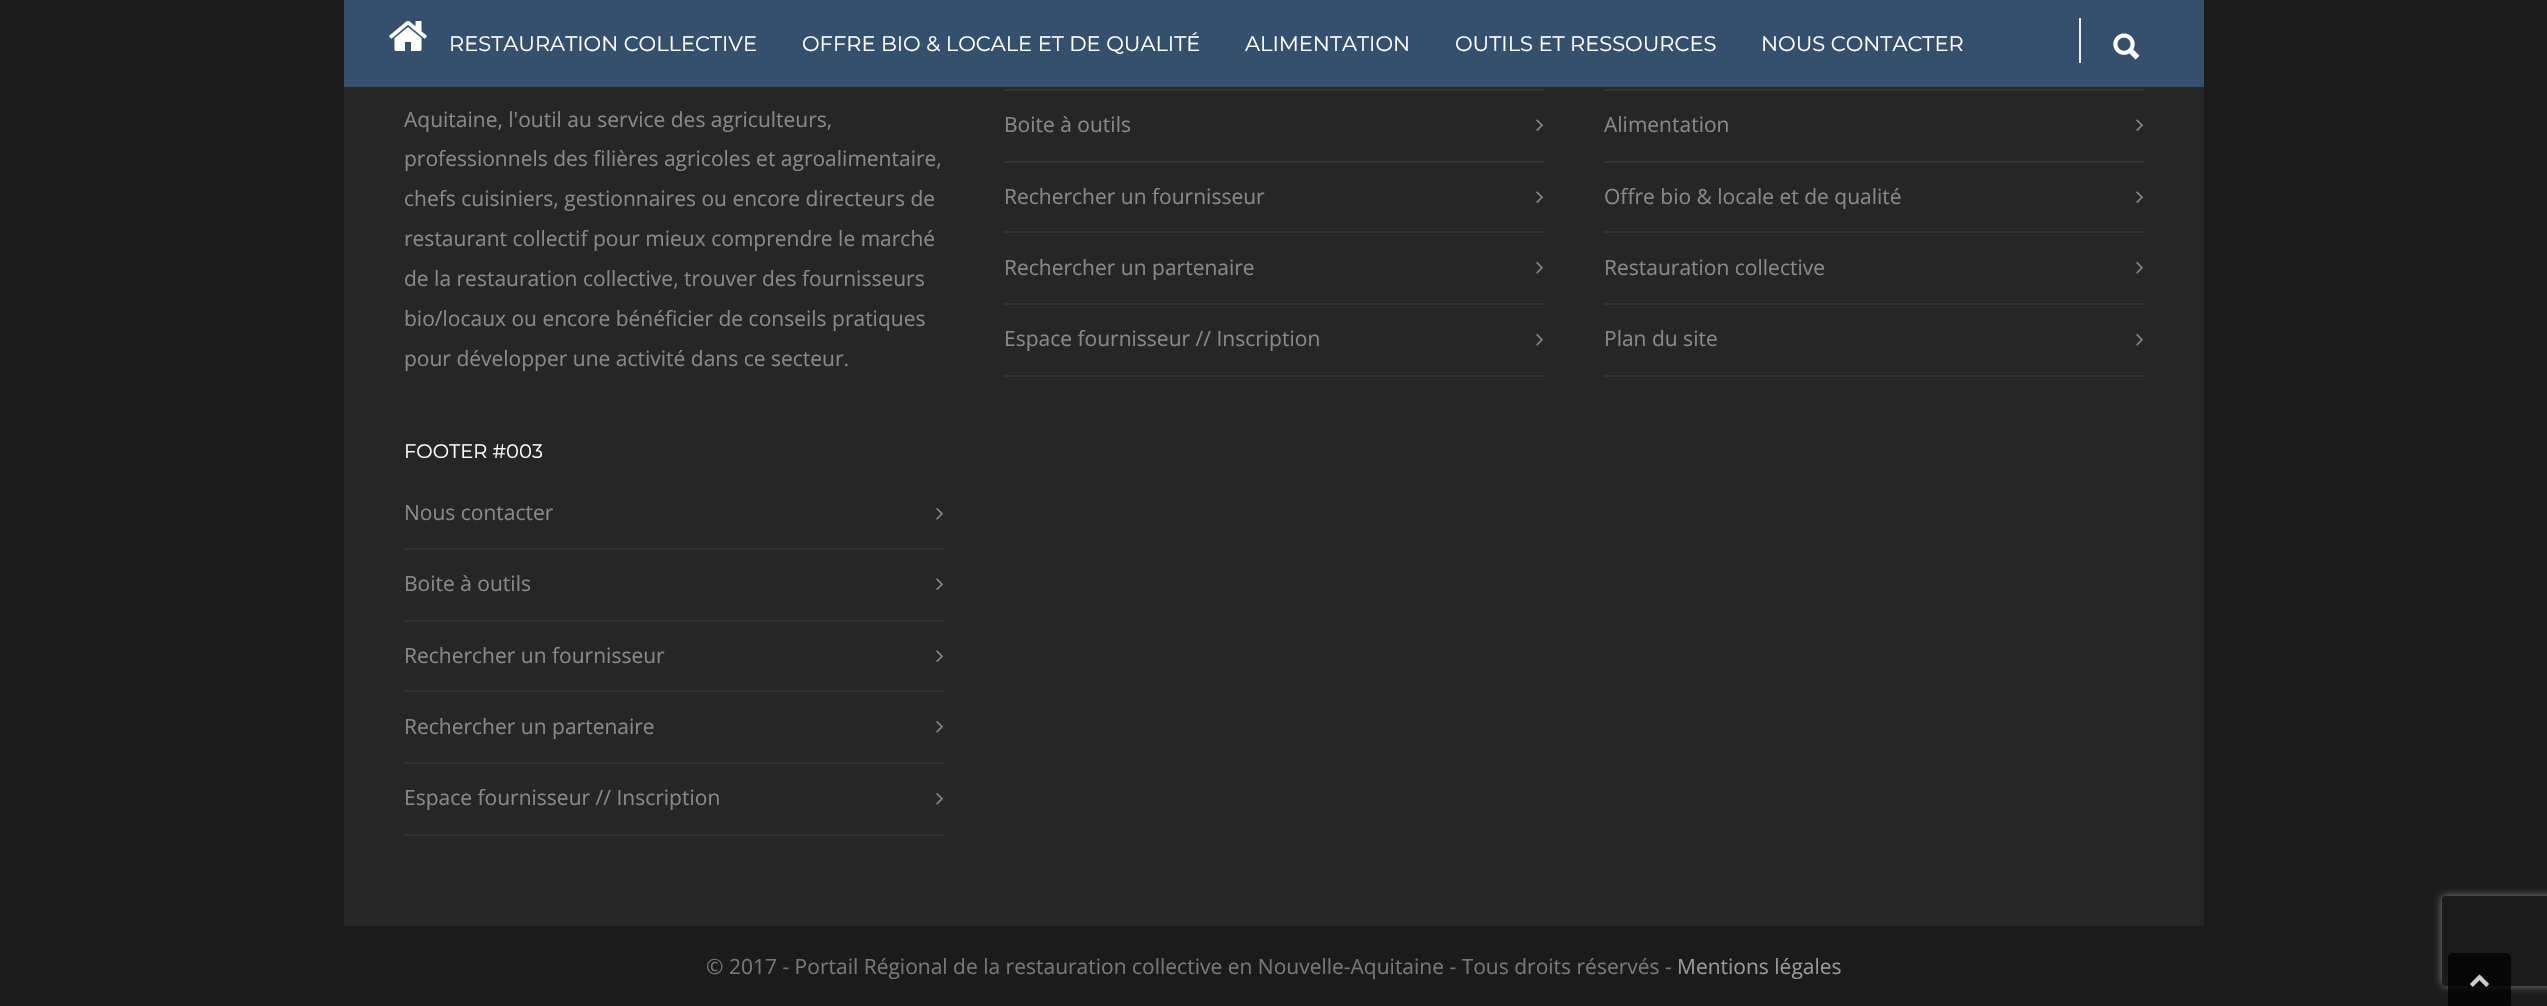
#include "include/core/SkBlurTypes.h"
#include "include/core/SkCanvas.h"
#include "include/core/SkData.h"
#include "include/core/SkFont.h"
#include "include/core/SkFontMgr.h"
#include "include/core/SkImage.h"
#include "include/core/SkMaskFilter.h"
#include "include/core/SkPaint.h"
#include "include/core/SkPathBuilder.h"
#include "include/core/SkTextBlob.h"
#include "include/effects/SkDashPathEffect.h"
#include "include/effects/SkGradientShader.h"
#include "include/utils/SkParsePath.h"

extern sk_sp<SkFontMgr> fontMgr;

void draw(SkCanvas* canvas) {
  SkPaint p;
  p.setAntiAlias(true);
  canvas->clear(SkColorSetRGB(27, 27, 27));
  p.setColor(SkColorSetRGB(53, 80, 108));
  canvas->drawRect(SkRect::MakeLTRB(344, 0, 2204, 87), p);
  canvas->drawImageRect(SkImages::DeferredFromEncodedData(SkData::MakeFromFileName("images/1.png")), SkRect::MakeLTRB(389, 21, 427, 51), SkSamplingOptions());
  p.setColor(SkColorSetRGB(239, 239, 239));
  canvas->drawRect(SkRect::MakeLTRB(2079, 18, 2081, 63), p);
  canvas->drawImageRect(SkImages::DeferredFromEncodedData(SkData::MakeFromFileName("images/2.png")), SkRect::MakeLTRB(2113, 33, 2140, 60), SkSamplingOptions());
  p.setColor(SkColorSetRGB(38, 38, 38));
  canvas->drawRect(SkRect::MakeLTRB(344, 87, 2204, 926), p);
  p.setColor(SkColorSetRGB(51, 51, 51));
  canvas->drawRect(SkRect::MakeLTRB(404, 548, 944, 550), p);
  canvas->drawImageRect(SkImages::DeferredFromEncodedData(SkData::MakeFromFileName("images/3.png")), SkRect::MakeLTRB(936, 508, 943, 520), SkSamplingOptions());
  canvas->drawRect(SkRect::MakeLTRB(404, 620, 944, 622), p);
  canvas->drawImageRect(SkImages::DeferredFromEncodedData(SkData::MakeFromFileName("images/4.png")), SkRect::MakeLTRB(936, 578, 943, 590), SkSamplingOptions());
  canvas->drawRect(SkRect::MakeLTRB(404, 690, 944, 692), p);
  canvas->drawImageRect(SkImages::DeferredFromEncodedData(SkData::MakeFromFileName("images/4.png")), SkRect::MakeLTRB(936, 650, 943, 662), SkSamplingOptions());
  canvas->drawRect(SkRect::MakeLTRB(404, 762, 944, 764), p);
  canvas->drawImageRect(SkImages::DeferredFromEncodedData(SkData::MakeFromFileName("images/3.png")), SkRect::MakeLTRB(936, 721, 943, 733), SkSamplingOptions());
  canvas->drawRect(SkRect::MakeLTRB(404, 834, 944, 836), p);
  canvas->drawImageRect(SkImages::DeferredFromEncodedData(SkData::MakeFromFileName("images/3.png")), SkRect::MakeLTRB(936, 793, 943, 805), SkSamplingOptions());
  canvas->drawRect(SkRect::MakeLTRB(1004, 89, 1544, 91), p);
  canvas->drawRect(SkRect::MakeLTRB(1004, 161, 1544, 163), p);
  canvas->drawImageRect(SkImages::DeferredFromEncodedData(SkData::MakeFromFileName("images/4.png")), SkRect::MakeLTRB(1536, 119, 1543, 131), SkSamplingOptions());
  canvas->drawRect(SkRect::MakeLTRB(1004, 231, 1544, 233), p);
  canvas->drawImageRect(SkImages::DeferredFromEncodedData(SkData::MakeFromFileName("images/4.png")), SkRect::MakeLTRB(1536, 191, 1543, 203), SkSamplingOptions());
  canvas->drawRect(SkRect::MakeLTRB(1004, 303, 1544, 305), p);
  canvas->drawImageRect(SkImages::DeferredFromEncodedData(SkData::MakeFromFileName("images/3.png")), SkRect::MakeLTRB(1536, 262, 1543, 274), SkSamplingOptions());
  canvas->drawRect(SkRect::MakeLTRB(1004, 375, 1544, 377), p);
  canvas->drawImageRect(SkImages::DeferredFromEncodedData(SkData::MakeFromFileName("images/3.png")), SkRect::MakeLTRB(1536, 334, 1543, 346), SkSamplingOptions());
  canvas->drawRect(SkRect::MakeLTRB(1604, 89, 2144, 91), p);
  canvas->drawRect(SkRect::MakeLTRB(1604, 161, 2144, 163), p);
  canvas->drawImageRect(SkImages::DeferredFromEncodedData(SkData::MakeFromFileName("images/4.png")), SkRect::MakeLTRB(2136, 119, 2143, 131), SkSamplingOptions());
  canvas->drawRect(SkRect::MakeLTRB(1604, 231, 2144, 233), p);
  canvas->drawImageRect(SkImages::DeferredFromEncodedData(SkData::MakeFromFileName("images/4.png")), SkRect::MakeLTRB(2136, 191, 2143, 203), SkSamplingOptions());
  canvas->drawRect(SkRect::MakeLTRB(1604, 303, 2144, 305), p);
  canvas->drawImageRect(SkImages::DeferredFromEncodedData(SkData::MakeFromFileName("images/3.png")), SkRect::MakeLTRB(2136, 262, 2143, 274), SkSamplingOptions());
  canvas->drawRect(SkRect::MakeLTRB(1604, 375, 2144, 377), p);
  canvas->drawImageRect(SkImages::DeferredFromEncodedData(SkData::MakeFromFileName("images/3.png")), SkRect::MakeLTRB(2136, 334, 2143, 346), SkSamplingOptions());
  canvas->save();
  canvas->clipPath(SkPathBuilder(SkPathFillType::kEvenOdd).moveTo(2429, 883).lineTo(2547, 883).lineTo(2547, 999).lineTo(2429, 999).close().moveTo(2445, 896).lineTo(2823, 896).cubicTo(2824.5f, 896, 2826, 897.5f, 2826, 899).lineTo(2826, 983).cubicTo(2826, 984.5f, 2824.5f, 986, 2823, 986).lineTo(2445, 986).cubicTo(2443.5f, 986, 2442, 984.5f, 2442, 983).lineTo(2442, 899).cubicTo(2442, 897.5f, 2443.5f, 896, 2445, 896).close().detach(), true);
  p.setColor(SkColorSetRGB(128, 128, 128));
  p.setMaskFilter(SkMaskFilter::MakeBlur(kNormal_SkBlurStyle, 4));
  canvas->drawRoundRect(SkRect::MakeLTRB(2442, 896, 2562, 986), 3, 3, p);
  p.setMaskFilter(nullptr);
  canvas->restore();
  p.setColor(SkColorSetARGB(204, 0, 0, 0));
  canvas->drawPath(SkPathBuilder().moveTo(2453, 953).lineTo(2506, 953).cubicTo(2509, 953, 2511, 955, 2511, 958).lineTo(2511, 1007).lineTo(2448, 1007).lineTo(2448, 958).cubicTo(2448, 955, 2450, 953, 2453, 953).close().detach(), p);
  canvas->drawImageRect(SkImages::DeferredFromEncodedData(SkData::MakeFromFileName("images/5.png")), SkRect::MakeLTRB(2470, 974, 2489, 987), SkSamplingOptions());
  SkFont font1(fontMgr->matchFamilyStyle("Montserrat", SkFontStyle::Normal()), 21);
  font1.setSubpixel(true);
  p.setColor(SK_ColorWHITE);
  canvas->drawString("RESTAURATION COLLECTIVE", 449, 51, font1, p);
  canvas->drawString("OFFRE BIO & LOCALE ET DE QUALITÉ", 802, 51, font1, p);
  canvas->drawString("ALIMENTATION", 1245, 51, font1, p);
  canvas->drawString("OUTILS ET RESSOURCES", 1455, 51, font1, p);
  canvas->drawString("NOUS CONTACTER", 1761, 51, font1, p);
  SkFont font2(fontMgr->matchFamilyStyle("Open Sans", SkFontStyle::Normal()), 21);
  font2.setSubpixel(true);
  p.setColor(SkColorSetRGB(136, 136, 136));
  canvas->drawString("Aquitaine, l'outil au service des agriculteurs,", 404, 127, font2, p);
  canvas->drawString("professionnels des filières agricoles et agroalimentaire,", 404, 166, font2, p);
  canvas->drawString("chefs cuisiniers, gestionnaires ou encore directeurs de", 404, 206, font2, p);
  canvas->drawString("restaurant collectif pour mieux comprendre le marché", 404, 246, font2, p);
  canvas->drawString("de la restauration collective, trouver des fournisseurs", 404, 286, font2, p);
  canvas->drawString("bio/locaux ou encore bénéficier de conseils pratiques", 404, 326, font2, p);
  canvas->drawString("pour développer une activité dans ce secteur.", 404, 366, font2, p);
  SkFont font3(fontMgr->matchFamilyStyle("Montserrat", SkFontStyle::Normal()), 19.5f);
  font3.setSubpixel(true);
  p.setColor(SK_ColorWHITE);
  canvas->drawString("FOOTER #003", 404, 458, font3, p);
  p.setColor(SkColorSetRGB(136, 136, 136));
  canvas->drawString("Nous contacter", 404, 520, font2, p);
  canvas->drawString("Boite à outils", 404, 591, font2, p);
  canvas->drawString("Rechercher un fournisseur", 404, 663, font2, p);
  canvas->drawString("Rechercher un partenaire", 404, 734, font2, p);
  canvas->drawString("Espace fournisseur // Inscription", 404, 805, font2, p);
  canvas->drawString("Boite à outils", 1004, 132, font2, p);
  canvas->drawString("Rechercher un fournisseur", 1004, 204, font2, p);
  canvas->drawString("Rechercher un partenaire", 1004, 275, font2, p);
  canvas->drawString("Espace fournisseur // Inscription", 1004, 346, font2, p);
  canvas->drawString("Alimentation", 1604, 132, font2, p);
  canvas->drawString("Offre bio & locale et de qualité", 1604, 204, font2, p);
  canvas->drawString("Restauration collective", 1604, 275, font2, p);
  canvas->drawString("Plan du site", 1604, 346, font2, p);
  p.setColor(SkColorSetRGB(119, 119, 119));
  canvas->drawString("© 2017 - Portail Régional de la restauration collective en Nouvelle-Aquitaine - Tous droits réservés -", 706, 974, font2, p);
  p.setColor(SkColorSetRGB(153, 153, 153));
  canvas->drawString("Mentions légales", 1677, 974, font2, p);
}
